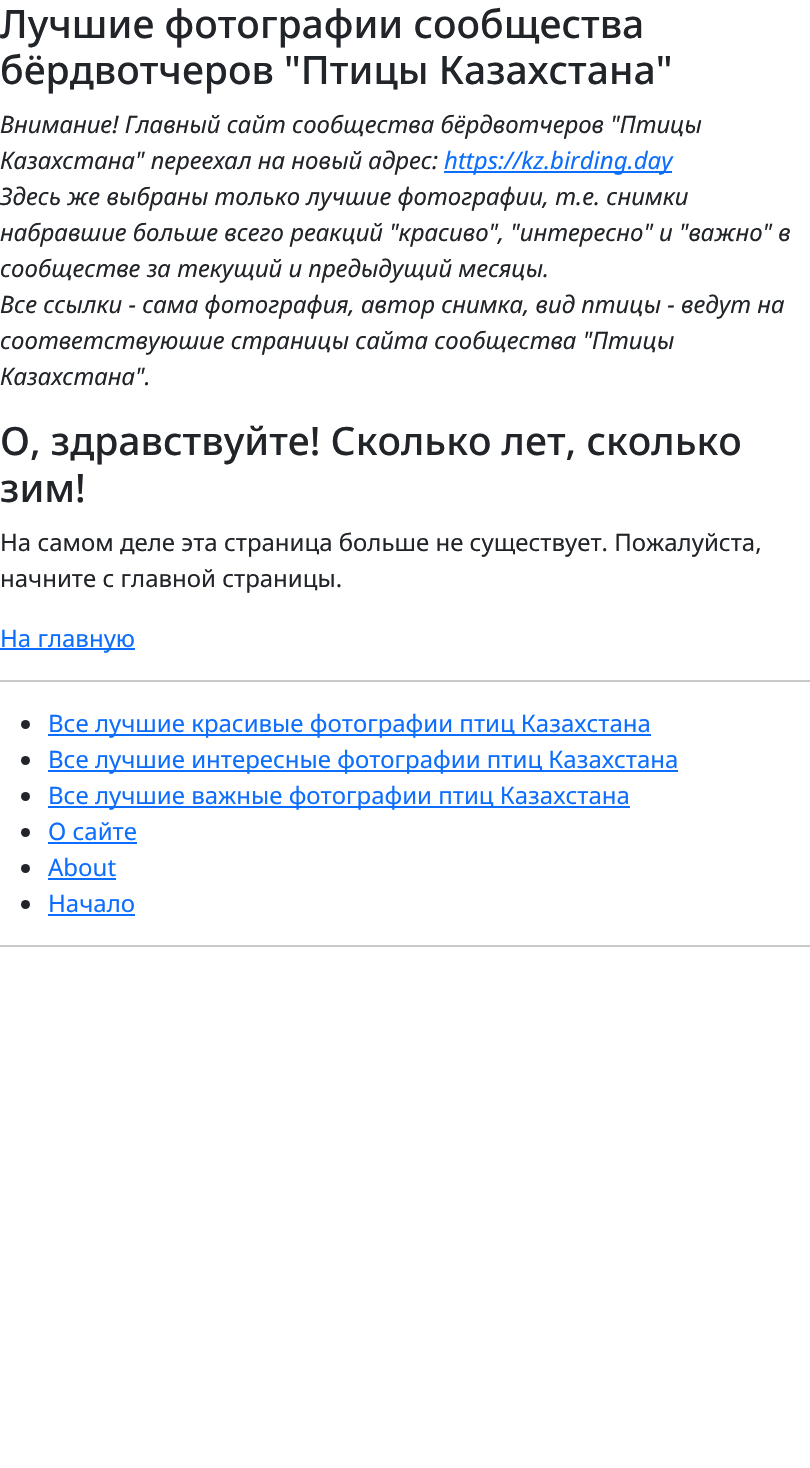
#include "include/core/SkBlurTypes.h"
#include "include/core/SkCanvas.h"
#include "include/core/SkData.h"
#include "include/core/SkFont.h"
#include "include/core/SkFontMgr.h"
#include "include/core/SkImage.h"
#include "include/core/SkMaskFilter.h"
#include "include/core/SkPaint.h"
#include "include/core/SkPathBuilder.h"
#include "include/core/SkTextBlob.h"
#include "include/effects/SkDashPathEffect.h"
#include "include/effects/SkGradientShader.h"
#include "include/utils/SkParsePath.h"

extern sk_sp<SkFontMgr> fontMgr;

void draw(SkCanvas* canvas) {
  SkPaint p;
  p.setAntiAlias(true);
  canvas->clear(SK_ColorWHITE);
  p.setColor(SkColorSetRGB(13, 110, 253));
  canvas->drawRect(SkRect::MakeLTRB(444, 171, 672, 173), p);
  canvas->drawRect(SkRect::MakeLTRB(0, 648, 135, 650), p);
  p.setColor(SkColorSetRGB(200, 201, 202));
  canvas->drawRect(SkRect::MakeLTRB(0, 680, 810, 682), p);
  p.setColor(SkColorSetRGB(33, 37, 41));
  canvas->drawCircle(25.5f, 724.5f, 4.5f, p);
  p.setColor(SkColorSetRGB(13, 110, 253));
  canvas->drawRect(SkRect::MakeLTRB(48, 734, 651, 736), p);
  p.setColor(SkColorSetRGB(33, 37, 41));
  canvas->drawCircle(25.5f, 760.5f, 4.5f, p);
  p.setColor(SkColorSetRGB(13, 110, 253));
  canvas->drawRect(SkRect::MakeLTRB(48, 770, 678, 772), p);
  p.setColor(SkColorSetRGB(33, 37, 41));
  canvas->drawCircle(25.5f, 796.5f, 4.5f, p);
  p.setColor(SkColorSetRGB(13, 110, 253));
  canvas->drawRect(SkRect::MakeLTRB(48, 806, 630, 808), p);
  p.setColor(SkColorSetRGB(33, 37, 41));
  canvas->drawCircle(25.5f, 832.5f, 4.5f, p);
  p.setColor(SkColorSetRGB(13, 110, 253));
  canvas->drawRect(SkRect::MakeLTRB(48, 842, 137, 844), p);
  p.setColor(SkColorSetRGB(33, 37, 41));
  canvas->drawCircle(25.5f, 868.5f, 4.5f, p);
  p.setColor(SkColorSetRGB(13, 110, 253));
  canvas->drawRect(SkRect::MakeLTRB(48, 878, 116, 880), p);
  p.setColor(SkColorSetRGB(33, 37, 41));
  canvas->drawCircle(25.5f, 904.5f, 4.5f, p);
  p.setColor(SkColorSetRGB(13, 110, 253));
  canvas->drawRect(SkRect::MakeLTRB(48, 914, 135, 916), p);
  p.setColor(SkColorSetRGB(200, 201, 202));
  canvas->drawRect(SkRect::MakeLTRB(0, 945, 810, 947), p);
  SkFont font1(fontMgr->matchFamilyStyle("Noto Sans", SkFontStyle(500, SkFontStyle::kNormal_Width, SkFontStyle::kUpright_Slant)), 39.1f);
  font1.setSubpixel(true);
  p.setColor(SkColorSetRGB(33, 37, 41));
  canvas->drawString("Лучшие фотографии сообщества", 0, 38, font1, p);
  canvas->drawString("бёрдвотчеров \"Птицы Казахстана\"", 0, 84, font1, p);
  SkFont font2(fontMgr->matchFamilyStyle("Noto Sans", SkFontStyle::Italic()), 24);
  font2.setSubpixel(true);
  canvas->drawString("Внимание! Главный сайт сообщества бёрдвотчеров \"Птицы", 0, 133, font2, p);
  canvas->drawString("Казахстана\" переехал на новый адрес:", 0, 169, font2, p);
  p.setColor(SkColorSetRGB(13, 110, 253));
  canvas->drawString("https://kz.birding.day", 444, 169, font2, p);
  p.setColor(SkColorSetRGB(33, 37, 41));
  canvas->drawString("Здесь же выбраны только лучшие фотографии, т.е. снимки", 0, 205, font2, p);
  canvas->drawString("набравшие больше всего реакций \"красиво\", \"интересно\" и \"важно\" в", 0, 241, font2, p);
  canvas->drawString("сообществе за текущий и предыдущий месяцы.", 0, 277, font2, p);
  canvas->drawString("Все ссылки - сама фотография, автор снимка, вид птицы - ведут на", 0, 313, font2, p);
  canvas->drawString("соответствуюшие страницы сайта сообщества \"Птицы", 0, 349, font2, p);
  canvas->drawString("Казахстана\".", 0, 385, font2, p);
  canvas->drawString("О, здравствуйте! Сколько лет, сколько", 0, 455, font1, p);
  canvas->drawString("зим!", 0, 502, font1, p);
  SkFont font3(fontMgr->matchFamilyStyle("Noto Sans", SkFontStyle::Normal()), 24);
  font3.setSubpixel(true);
  canvas->drawString("На самом деле эта страница больше не существует. Пожалуйста,", 0, 551, font3, p);
  canvas->drawString("начните с главной страницы.", 0, 587, font3, p);
  p.setColor(SkColorSetRGB(13, 110, 253));
  canvas->drawString("На главную", 0, 647, font3, p);
  canvas->drawString("Все лучшие красивые фотографии птиц Казахстана", 48, 732, font3, p);
  canvas->drawString("Все лучшие интересные фотографии птиц Казахстана", 48, 768, font3, p);
  canvas->drawString("Все лучшие важные фотографии птиц Казахстана", 48, 804, font3, p);
  canvas->drawString("О сайте", 48, 840, font3, p);
  canvas->drawString("About", 48, 876, font3, p);
  canvas->drawString("Начало", 48, 912, font3, p);
}
